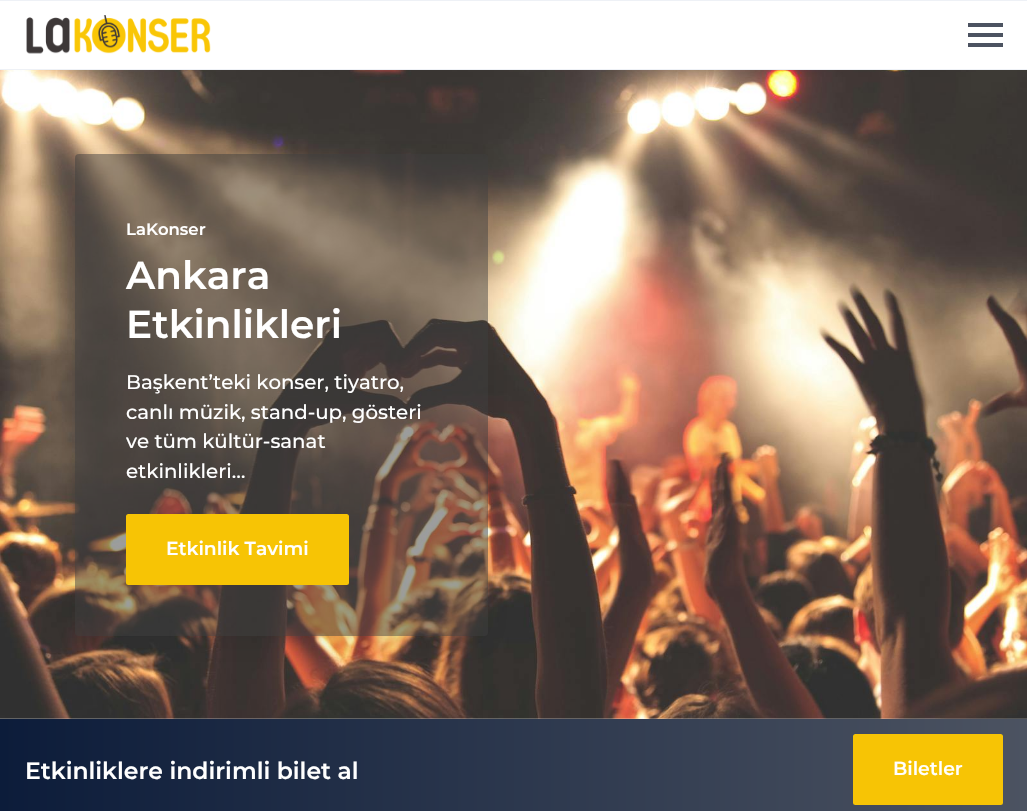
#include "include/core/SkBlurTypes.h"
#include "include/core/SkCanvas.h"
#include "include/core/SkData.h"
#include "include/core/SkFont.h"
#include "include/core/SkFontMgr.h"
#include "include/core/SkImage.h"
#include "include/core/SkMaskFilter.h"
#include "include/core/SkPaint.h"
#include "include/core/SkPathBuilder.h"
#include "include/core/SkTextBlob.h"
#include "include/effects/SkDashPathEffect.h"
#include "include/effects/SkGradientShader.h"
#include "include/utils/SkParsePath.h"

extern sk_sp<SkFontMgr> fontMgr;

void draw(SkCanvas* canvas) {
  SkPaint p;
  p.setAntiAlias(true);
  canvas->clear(SK_ColorWHITE);
  p.setColor(SkColorSetRGB(238, 241, 246));
  canvas->drawRect(SkRect::MakeLTRB(0, 0, 1027, 1), p);
  canvas->drawRect(SkRect::MakeLTRB(0, 69, 1027, 70), p);
  canvas->drawImageRect(SkImages::DeferredFromEncodedData(SkData::MakeFromFileName("images/1.png")), SkRect::MakeLTRB(26, 15, 211, 54), SkSamplingOptions());
  p.setColor(SkColorSetRGB(76, 83, 97));
  canvas->drawRect(SkRect::MakeLTRB(968, 33, 1003, 37), p);
  canvas->drawRect(SkRect::MakeLTRB(968, 23, 1003, 27), p);
  canvas->drawRect(SkRect::MakeLTRB(968, 43, 1003, 47), p);
  p.setColor(SkColorSetRGB(128, 128, 128));
  p.setMaskFilter(SkMaskFilter::MakeBlur(kNormal_SkBlurStyle, 3));
  canvas->drawRoundRect(SkRect::MakeLTRB(940, 719, 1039, 794), 2.5f, 2.5f, p);
  p.setMaskFilter(nullptr);
  canvas->drawImageRect(SkImages::DeferredFromEncodedData(SkData::MakeFromFileName("images/2.png")), SkRect::MakeLTRB(0, 70, 1027, 719), SkSamplingOptions());
  canvas->save();
  canvas->clipPath(SkPathBuilder(SkPathFillType::kEvenOdd).moveTo(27, 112).lineTo(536, 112).lineTo(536, 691).lineTo(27, 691).close().moveTo(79, 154).lineTo(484, 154).cubicTo(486, 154, 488, 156, 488, 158).lineTo(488, 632).cubicTo(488, 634, 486, 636, 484, 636).lineTo(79, 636).cubicTo(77, 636, 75, 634, 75, 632).lineTo(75, 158).cubicTo(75, 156, 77, 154, 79, 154).close().detach(), true);
  p.setColor(SkColorSetARGB(20, 0, 0, 0));
  p.setMaskFilter(SkMaskFilter::MakeBlur(kNormal_SkBlurStyle, 15.5f));
  canvas->drawRoundRect(SkRect::MakeLTRB(75, 160, 488, 643), 4, 4, p);
  p.setMaskFilter(nullptr);
  canvas->restore();
  p.setColor(SkColorSetARGB(128, 60, 60, 60));
  canvas->drawRoundRect(SkRect::MakeLTRB(75, 154, 488, 636), 4, 4, p);
  p.setColor(SkColorSetRGB(247, 196, 5));
  canvas->drawRoundRect(SkRect::MakeLTRB(127.5f, 515.5f, 347.5f, 583.5f), 1, 1, p);
  p.setStyle(SkPaint::kStroke_Style);
  p.setStrokeWidth(3);
  canvas->drawRoundRect(SkRect::MakeLTRB(127.5f, 515.5f, 347.5f, 583.5f), 1, 1, p);
  p.setStyle(SkPaint::kFill_Style);
  {
    const SkColor colors[] = {SkColorSetRGB(76, 83, 97), SkColorSetRGB(12, 28, 58)};
    const float stops[] = {0, 1};
    const SkPoint ends[] = {{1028, 769}, {0, 769}};
    p.setShader(SkGradientShader::MakeLinear(ends, colors, stops, 2, SkTileMode::kClamp));
    p.setAlpha(255);
  }
  canvas->drawRect(SkRect::MakeLTRB(0, 719, 1027, 811), p);
  p.setShader(nullptr);
  p.setColor(SkColorSetRGB(247, 196, 5));
  canvas->drawRoundRect(SkRect::MakeLTRB(854.5f, 735.5f, 1001.5f, 803.5f), 1, 1, p);
  p.setStyle(SkPaint::kStroke_Style);
  canvas->drawRoundRect(SkRect::MakeLTRB(854.5f, 735.5f, 1001.5f, 803.5f), 1, 1, p);
  SkFont font1(fontMgr->matchFamilyStyle("Montserrat", SkFontStyle(600, SkFontStyle::kNormal_Width, SkFontStyle::kUpright_Slant)), 16.5f);
  font1.setSubpixel(true);
  p.setStyle(SkPaint::kFill_Style);
  p.setColor(SK_ColorWHITE);
  canvas->drawString("LaKonser", 126, 235, font1, p);
  SkFont font2(fontMgr->matchFamilyStyle("Montserrat", SkFontStyle(600, SkFontStyle::kNormal_Width, SkFontStyle::kUpright_Slant)), 39);
  font2.setSubpixel(true);
  canvas->drawString("Ankara", 126, 289, font2, p);
  canvas->drawString("Etkinlikleri", 126, 338, font2, p);
  SkFont font3(fontMgr->matchFamilyStyle("Montserrat", SkFontStyle(500, SkFontStyle::kNormal_Width, SkFontStyle::kUpright_Slant)), 19.75f);
  font3.setSubpixel(true);
  canvas->drawString("Başkent’teki konser, tiyatro,", 126, 389, font3, p);
  canvas->drawString("canlı müzik, stand-up, gösteri", 126, 419, font3, p);
  canvas->drawString("ve tüm kültür-sanat", 126, 448, font3, p);
  canvas->drawString("etkinlikleri…", 126, 478, font3, p);
  SkFont font4(fontMgr->matchFamilyStyle("Montserrat", SkFontStyle(600, SkFontStyle::kNormal_Width, SkFontStyle::kUpright_Slant)), 18.75f);
  font4.setSubpixel(true);
  canvas->drawString("Etkinlik Tavimi", 166, 555, font4, p);
  SkFont font5(fontMgr->matchFamilyStyle("Montserrat", SkFontStyle(600, SkFontStyle::kNormal_Width, SkFontStyle::kUpright_Slant)), 23.5f);
  font5.setSubpixel(true);
  canvas->drawString("Etkinliklere indirimli bilet al", 25, 779, font5, p);
  canvas->drawString("Biletler", 893, 775, font4, p);
}
